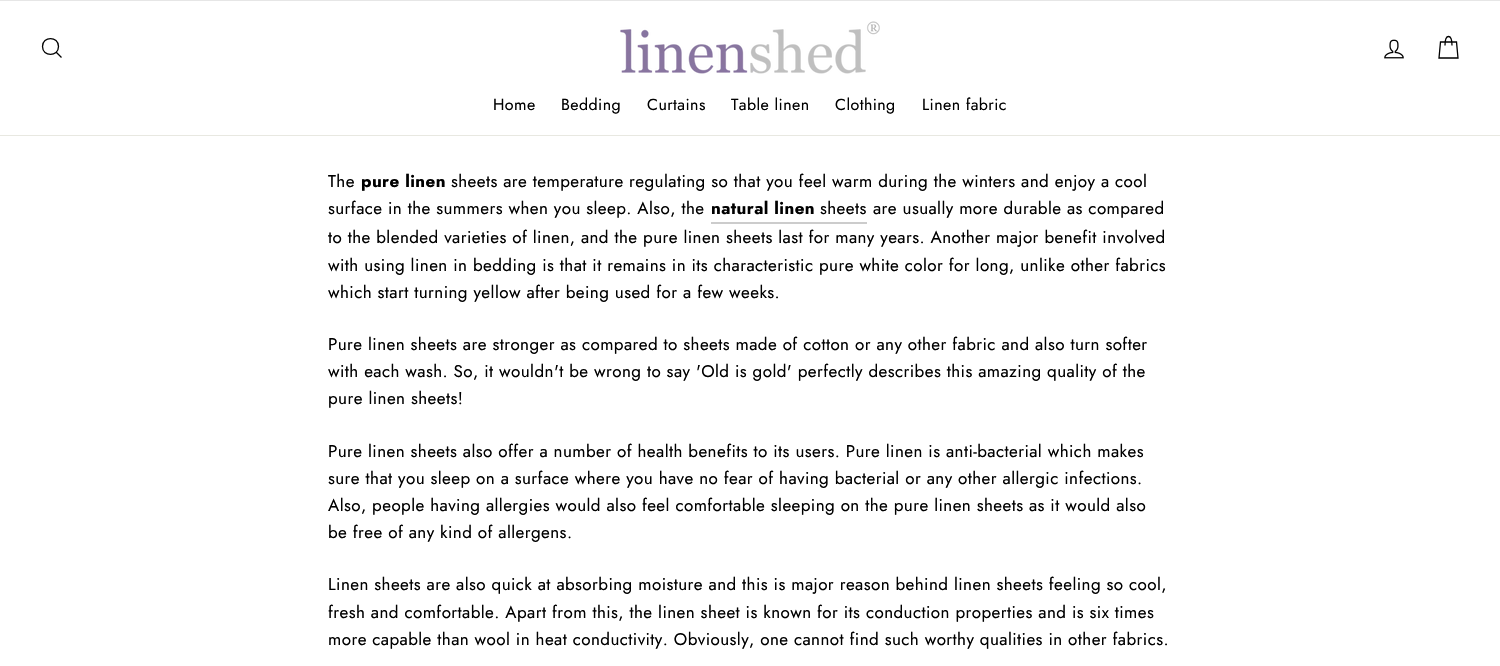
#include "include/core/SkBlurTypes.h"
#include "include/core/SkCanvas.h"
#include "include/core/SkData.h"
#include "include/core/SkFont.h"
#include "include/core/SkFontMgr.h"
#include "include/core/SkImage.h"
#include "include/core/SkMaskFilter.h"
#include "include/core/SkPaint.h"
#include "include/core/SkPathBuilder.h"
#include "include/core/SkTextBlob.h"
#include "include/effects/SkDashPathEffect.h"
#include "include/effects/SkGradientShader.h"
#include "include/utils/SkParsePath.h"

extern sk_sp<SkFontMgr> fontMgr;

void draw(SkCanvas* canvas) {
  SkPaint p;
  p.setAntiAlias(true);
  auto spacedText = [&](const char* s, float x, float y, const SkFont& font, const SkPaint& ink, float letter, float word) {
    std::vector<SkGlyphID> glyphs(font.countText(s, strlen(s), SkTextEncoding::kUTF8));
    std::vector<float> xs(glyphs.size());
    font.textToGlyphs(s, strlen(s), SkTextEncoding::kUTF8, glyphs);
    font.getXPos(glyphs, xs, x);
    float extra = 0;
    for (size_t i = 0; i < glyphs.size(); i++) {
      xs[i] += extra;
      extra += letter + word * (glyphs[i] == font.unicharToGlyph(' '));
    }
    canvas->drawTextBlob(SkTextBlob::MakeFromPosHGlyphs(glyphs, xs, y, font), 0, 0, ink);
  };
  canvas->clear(SK_ColorWHITE);
  p.setColor(SkColorSetRGB(230, 230, 230));
  canvas->drawRect(SkRect::MakeLTRB(0, 0, 1500, 1), p);
  p.setColor(SkColorSetRGB(232, 232, 225));
  canvas->drawRect(SkRect::MakeLTRB(0, 135, 1500, 136), p);
  p.setStyle(SkPaint::kStroke_Style);
  p.setStrokeWidth(1.3f);
  p.setColor(SK_ColorBLACK);
  canvas->drawPath(SkPathBuilder().moveTo(58.5f, 46.5f).cubicTo(58.5f, 57, 42.5f, 57, 42.5f, 46.5f).cubicTo(42.5f, 36, 58.5f, 36, 58.5f, 46.5f).close().moveTo(61.5f, 57.5f).lineTo(56.5f, 52.5f).detach(), p);
  canvas->drawImageRect(SkImages::DeferredFromEncodedData(SkData::MakeFromFileName("images/1.png")), SkRect::MakeLTRB(620, 21, 880, 74), SkSamplingOptions());
  canvas->drawImageRect(SkImages::DeferredFromEncodedData(SkData::MakeFromFileName("images/2.png")), SkRect::MakeLTRB(1384, 39, 1404, 59), SkSamplingOptions());
  canvas->drawPath(SkPathBuilder().moveTo(1445, 45.5f).cubicTo(1445, 33.5f, 1452, 33.5f, 1452, 45.5f).moveTo(1440.5f, 42).lineTo(1456.5f, 42).lineTo(1458, 58).lineTo(1439, 58).close().detach(), p);
  p.setStyle(SkPaint::kFill_Style);
  p.setColor(SkColorSetRGB(204, 204, 204));
  canvas->drawRect(SkRect::MakeLTRB(711, 222, 867, 224), p);
  SkFont font1(fontMgr->matchFamilyStyle("Jost", SkFontStyle::Normal()), 16);
  font1.setSubpixel(true);
  p.setColor(SK_ColorBLACK);
  spacedText("Home", 493, 110, font1, p, 0.42f, 0);
  spacedText("Bedding", 561, 110, font1, p, 0.42f, 0);
  spacedText("Curtains", 647, 110, font1, p, 0.42f, 0);
  spacedText("Table linen", 731, 110, font1, p, 0.42f, 0);
  spacedText("Clothing", 835, 110, font1, p, 0.42f, 0);
  spacedText("Linen fabric", 922, 110, font1, p, 0.42f, 0);
  SkFont font2(fontMgr->matchFamilyStyle("Jost", SkFontStyle::Normal()), 17);
  font2.setSubpixel(true);
  spacedText("The", 328, 187, font2, p, 0.42f, 0);
  SkFont font3(fontMgr->matchFamilyStyle("Jost", SkFontStyle::Bold()), 17);
  font3.setSubpixel(true);
  spacedText("pure linen", 361, 187, font3, p, 0.42f, 0);
  spacedText("sheets are temperature regulating so that you feel warm during the winters and enjoy a cool", 451, 187, font2, p, 0.42f, 0);
  spacedText("surface in the summers when you sleep. Also, the", 328, 214, font2, p, 0.42f, 0);
  spacedText("natural linen", 711, 214, font3, p, 0.42f, 0);
  spacedText("sheets", 820, 214, font2, p, 0.42f, 0);
  spacedText("are usually more durable as compared", 873, 214, font2, p, 0.42f, 0);
  spacedText("to the blended varieties of linen, and the pure linen sheets last for many years. Another major benefit involved", 328, 243, font2, p, 0.42f, 0);
  spacedText("with using linen in bedding is that it remains in its characteristic pure white color for long, unlike other fabrics", 328, 271, font2, p, 0.42f, 0);
  spacedText("which start turning yellow after being used for a few weeks.", 328, 298, font2, p, 0.42f, 0);
  spacedText("Pure linen sheets are stronger as compared to sheets made of cotton or any other fabric and also turn softer", 328, 350, font2, p, 0.42f, 0);
  spacedText("with each wash. So, it wouldn't be wrong to say 'Old is gold' perfectly describes this amazing quality of the", 328, 377, font2, p, 0.42f, 0);
  spacedText("pure linen sheets!", 328, 404, font2, p, 0.42f, 0);
  spacedText("Pure linen sheets also offer a number of health benefits to its users. Pure linen is anti-bacterial which makes", 328, 457, font2, p, 0.42f, 0);
  spacedText("sure that you sleep on a surface where you have no fear of having bacterial or any other allergic infections.", 328, 484, font2, p, 0.42f, 0);
  spacedText("Also, people having allergies would also feel comfortable sleeping on the pure linen sheets as it would also", 328, 511, font2, p, 0.42f, 0);
  spacedText("be free of any kind of allergens.", 328, 538, font2, p, 0.42f, 0);
  spacedText("Linen sheets are also quick at absorbing moisture and this is major reason behind linen sheets feeling so cool,", 328, 590, font2, p, 0.42f, 0);
  spacedText("fresh and comfortable. Apart from this, the linen sheet is known for its conduction properties and is six times", 328, 618, font2, p, 0.42f, 0);
  spacedText("more capable than wool in heat conductivity. Obviously, one cannot find such worthy qualities in other fabrics.", 328, 645, font2, p, 0.42f, 0);
}
